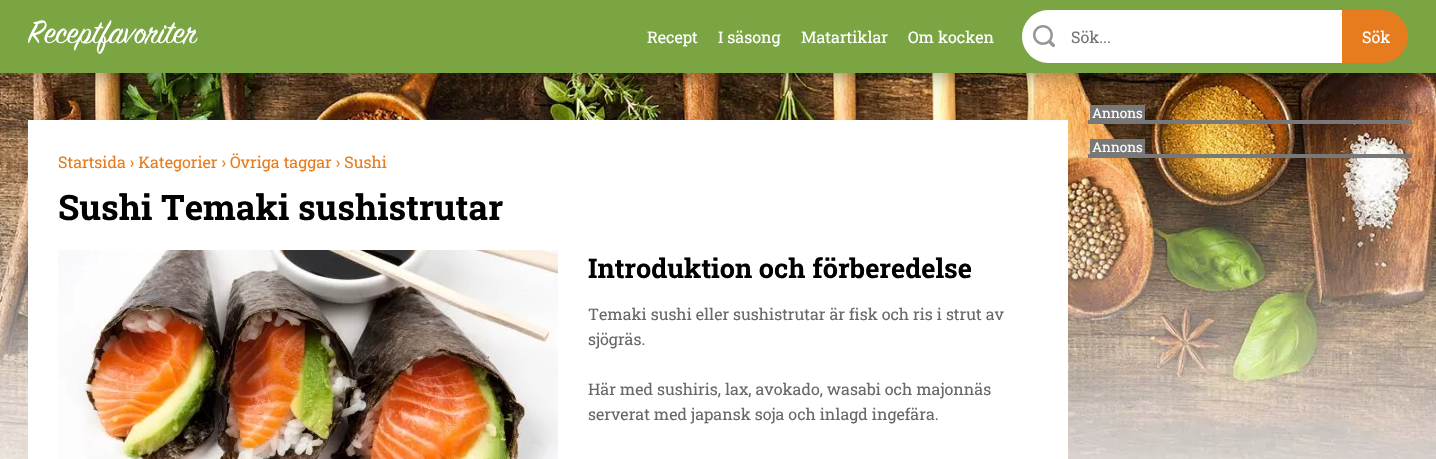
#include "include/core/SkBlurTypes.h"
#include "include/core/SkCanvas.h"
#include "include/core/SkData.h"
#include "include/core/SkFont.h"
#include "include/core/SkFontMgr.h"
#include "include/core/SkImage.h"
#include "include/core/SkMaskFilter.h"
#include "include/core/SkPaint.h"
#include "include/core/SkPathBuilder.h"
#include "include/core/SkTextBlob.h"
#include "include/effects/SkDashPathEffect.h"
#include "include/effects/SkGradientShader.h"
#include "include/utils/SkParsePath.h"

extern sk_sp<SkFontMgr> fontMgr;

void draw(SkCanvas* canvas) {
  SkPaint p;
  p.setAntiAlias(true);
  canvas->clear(SK_ColorWHITE);
  canvas->drawImageRect(SkImages::DeferredFromEncodedData(SkData::MakeFromFileName("images/1.png")), SkRect::MakeLTRB(0, 73, 1436, 459), SkSamplingOptions());
  p.setColor(SkColorSetARGB(102, 0, 0, 0));
  p.setMaskFilter(SkMaskFilter::MakeBlur(kNormal_SkBlurStyle, 10));
  canvas->drawRect(SkRect::MakeLTRB(9, 19, 1427, 74), p);
  p.setMaskFilter(nullptr);
  p.setColor(SkColorSetRGB(123, 165, 67));
  canvas->drawRect(SkRect::MakeLTRB(0, 0, 1436, 73), p);
  canvas->drawImageRect(SkImages::DeferredFromEncodedData(SkData::MakeFromFileName("images/2.png")), SkRect::MakeLTRB(28, 20, 198, 54), SkSamplingOptions());
  p.setColor(SK_ColorWHITE);
  canvas->drawPath(SkPathBuilder().moveTo(1048.5f, 10).lineTo(1342, 10).lineTo(1342, 63).lineTo(1048.5f, 63).cubicTo(1034, 63, 1022, 51, 1022, 36.5f).cubicTo(1022, 22, 1034, 10, 1048.5f, 10).close().detach(), p);
  canvas->drawImageRect(SkImages::DeferredFromEncodedData(SkData::MakeFromFileName("images/3.png")), SkRect::MakeLTRB(1033, 25, 1055, 48), SkSamplingOptions());
  p.setColor(SkColorSetRGB(231, 124, 30));
  canvas->drawPath(SkPathBuilder().moveTo(1342, 10).lineTo(1381.5f, 10).cubicTo(1396, 10, 1408, 22, 1408, 36.5f).cubicTo(1408, 51, 1396, 63, 1381.5f, 63).lineTo(1342, 63).close().detach(), p);
  p.setColor(SkColorSetRGB(120, 120, 120));
  canvas->drawRect(SkRect::MakeLTRB(1088, 120, 1412, 124), p);
  canvas->drawRect(SkRect::MakeLTRB(1090, 105, 1145, 120), p);
  canvas->drawRect(SkRect::MakeLTRB(1088, 154, 1412, 158), p);
  canvas->drawRect(SkRect::MakeLTRB(1090, 139, 1145, 154), p);
  p.setColor(SK_ColorWHITE);
  canvas->drawRect(SkRect::MakeLTRB(28, 120, 1068, 459), p);
  canvas->drawImageRect(SkImages::DeferredFromEncodedData(SkData::MakeFromFileName("images/4.png")), SkRect::MakeLTRB(58, 250, 558, 459), SkSamplingOptions());
  SkFont font1(fontMgr->matchFamilyStyle("Roboto Slab", SkFontStyle::Normal()), 16);
  font1.setSubpixel(true);
  canvas->drawString("Recept", 647, 43, font1, p);
  canvas->drawString("I säsong", 718, 43, font1, p);
  canvas->drawString("Matartiklar", 801, 43, font1, p);
  canvas->drawString("Om kocken", 908, 43, font1, p);
  p.setColor(SkColorSetRGB(117, 117, 117));
  canvas->drawString("Sök...", 1071, 43, font1, p);
  p.setColor(SK_ColorWHITE);
  canvas->drawString("Sök", 1362, 43, font1, p);
  SkFont font2(fontMgr->matchFamilyStyle("Roboto Slab", SkFontStyle::Normal()), 13.5f);
  font2.setSubpixel(true);
  canvas->drawString("Annons", 1092, 118, font2, p);
  canvas->drawString("Annons", 1092, 152, font2, p);
  p.setColor(SkColorSetRGB(231, 124, 30));
  canvas->drawString("Startsida › Kategorier › Övriga taggar › Sushi", 58, 168, font1, p);
  SkFont font3(fontMgr->matchFamilyStyle("Roboto Slab", SkFontStyle::Bold()), 35);
  font3.setSubpixel(true);
  p.setColor(SK_ColorBLACK);
  canvas->drawString("Sushi Temaki sushistrutar", 58, 220, font3, p);
  SkFont font4(fontMgr->matchFamilyStyle("Roboto Slab", SkFontStyle::Bold()), 27);
  font4.setSubpixel(true);
  canvas->drawString("Introduktion och förberedelse", 588, 278, font4, p);
  p.setColor(SkColorSetRGB(104, 104, 104));
  canvas->drawString("Temaki sushi eller sushistrutar är fisk och ris i strut av", 588, 320, font1, p);
  canvas->drawString("sjögräs.", 588, 345, font1, p);
  canvas->drawString("Här med sushiris, lax, avokado, wasabi och majonnäs", 588, 395, font1, p);
  canvas->drawString("serverat med japansk soja och inlagd ingefära.", 588, 420, font1, p);
}
